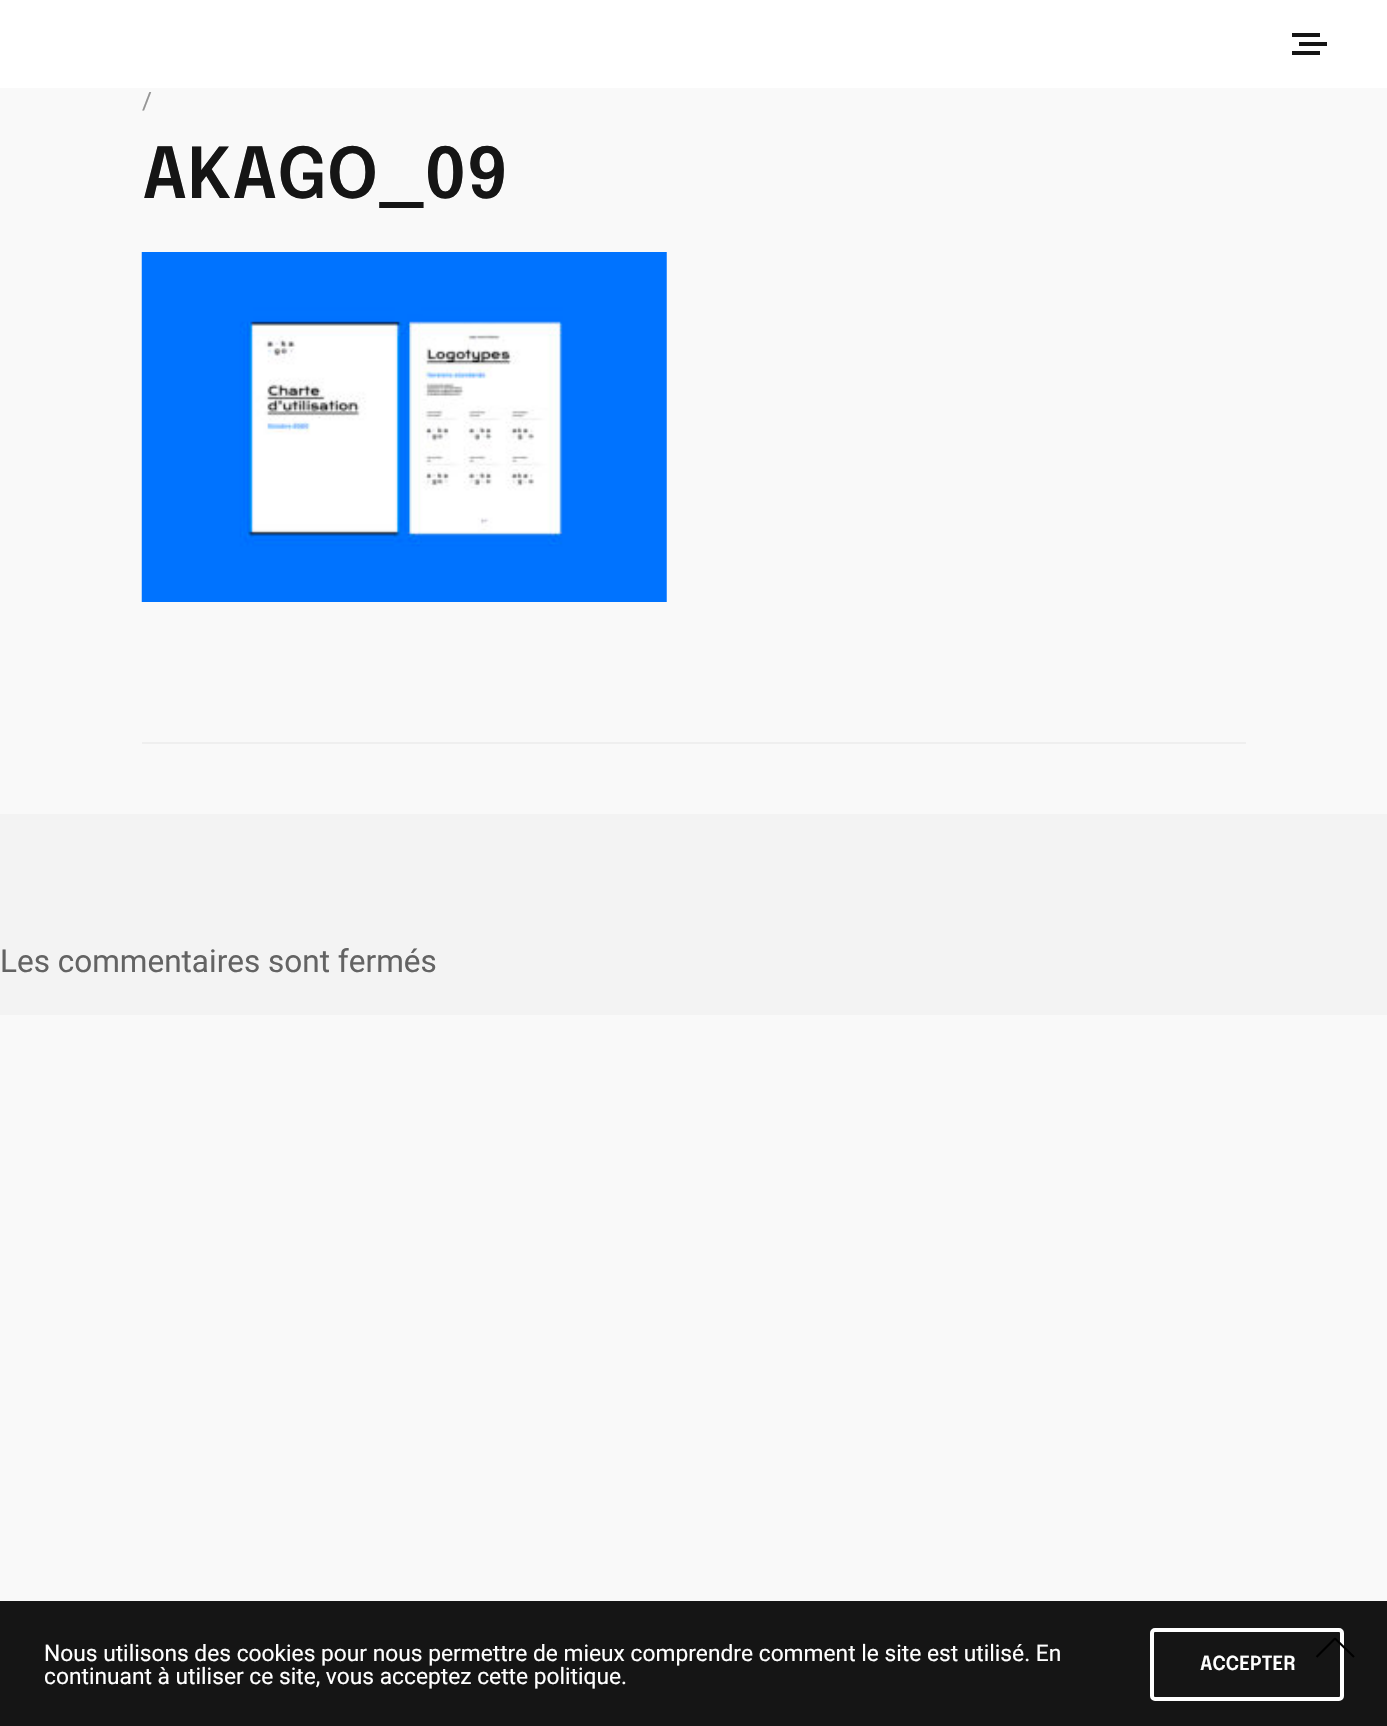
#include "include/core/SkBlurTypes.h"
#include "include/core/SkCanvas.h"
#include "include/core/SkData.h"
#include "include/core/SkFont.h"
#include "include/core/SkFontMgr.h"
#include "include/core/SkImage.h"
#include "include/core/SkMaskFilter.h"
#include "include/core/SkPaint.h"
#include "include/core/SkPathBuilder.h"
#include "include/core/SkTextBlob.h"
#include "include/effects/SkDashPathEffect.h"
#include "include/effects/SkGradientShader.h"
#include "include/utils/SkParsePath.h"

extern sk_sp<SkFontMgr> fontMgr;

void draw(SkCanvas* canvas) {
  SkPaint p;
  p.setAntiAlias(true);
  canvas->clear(SkColorSetRGB(249, 249, 249));
  p.setColor(SK_ColorWHITE);
  canvas->drawRect(SkRect::MakeLTRB(0, 0, 1387, 88), p);
  p.setColor(SkColorSetRGB(21, 21, 21));
  canvas->drawRect(SkRect::MakeLTRB(1292, 33, 1320, 37), p);
  canvas->drawRect(SkRect::MakeLTRB(1299, 42, 1327, 46), p);
  canvas->drawRect(SkRect::MakeLTRB(1292, 51, 1320, 55), p);
  canvas->drawImageRect(SkImages::DeferredFromEncodedData(SkData::MakeFromFileName("images/1.png")), SkRect::MakeLTRB(141, 252, 667, 602), SkSamplingOptions());
  p.setColor(SkColorSetRGB(239, 239, 239));
  canvas->drawRect(SkRect::MakeLTRB(142, 742, 1246, 744), p);
  p.setColor(SkColorSetRGB(243, 243, 243));
  canvas->drawRect(SkRect::MakeLTRB(0, 814, 1387, 1015), p);
  p.setColor(SkColorSetRGB(21, 21, 21));
  canvas->drawRect(SkRect::MakeLTRB(0, 1601, 1387, 1726), p);
  p.setStyle(SkPaint::kStroke_Style);
  p.setStrokeWidth(4);
  p.setColor(SK_ColorWHITE);
  canvas->drawRoundRect(SkRect::MakeLTRB(1152, 1630, 1342, 1699), 3, 3, p);
  p.setStrokeWidth(2.2f);
  p.setStrokeJoin(SkPaint::kBevel_Join);
  p.setColor(SK_ColorBLACK);
  canvas->drawPath(SkPathBuilder().moveTo(1316.5f, 1657).lineTo(1335, 1638.5f).lineTo(1354, 1657).detach(), p);
  SkFont font1(fontMgr->matchFamilyStyle("Roboto", SkFontStyle::Normal()), 24);
  font1.setSubpixel(true);
  p.setStyle(SkPaint::kFill_Style);
  p.setColor(SkColorSetRGB(150, 150, 150));
  canvas->drawString("/", 142, 109, font1, p);
  SkFont font2(fontMgr->matchFamilyStyle("Epilogue", SkFontStyle(600, SkFontStyle::kNormal_Width, SkFontStyle::kUpright_Slant)), 70);
  font2.setSubpixel(true);
  p.setColor(SkColorSetRGB(21, 21, 21));
  canvas->drawString("AKAGO_09", 142, 198, font2, p);
  SkFont font3(fontMgr->matchFamilyStyle("Roboto", SkFontStyle::Normal()), 31.5f);
  font3.setSubpixel(true);
  p.setColor(SkColorSetRGB(99, 99, 99));
  canvas->drawString("Les commentaires sont fermés", 0, 972, font3, p);
  SkFont font4(fontMgr->matchFamilyStyle("Roboto", SkFontStyle::Normal()), 22.75f);
  font4.setSubpixel(true);
  p.setColor(SK_ColorWHITE);
  canvas->drawString("Nous utilisons des cookies pour nous permettre de mieux comprendre comment le site est utilisé. En", 44, 1661, font4, p);
  canvas->drawString("continuant à utiliser ce site, vous acceptez cette politique.", 44, 1684, font4, p);
  SkFont font5(fontMgr->matchFamilyStyle("Epilogue", SkFontStyle(600, SkFontStyle::kNormal_Width, SkFontStyle::kUpright_Slant)), 19.25f);
  font5.setSubpixel(true);
  canvas->drawString("ACCEPTER", 1200, 1670, font5, p);
}
